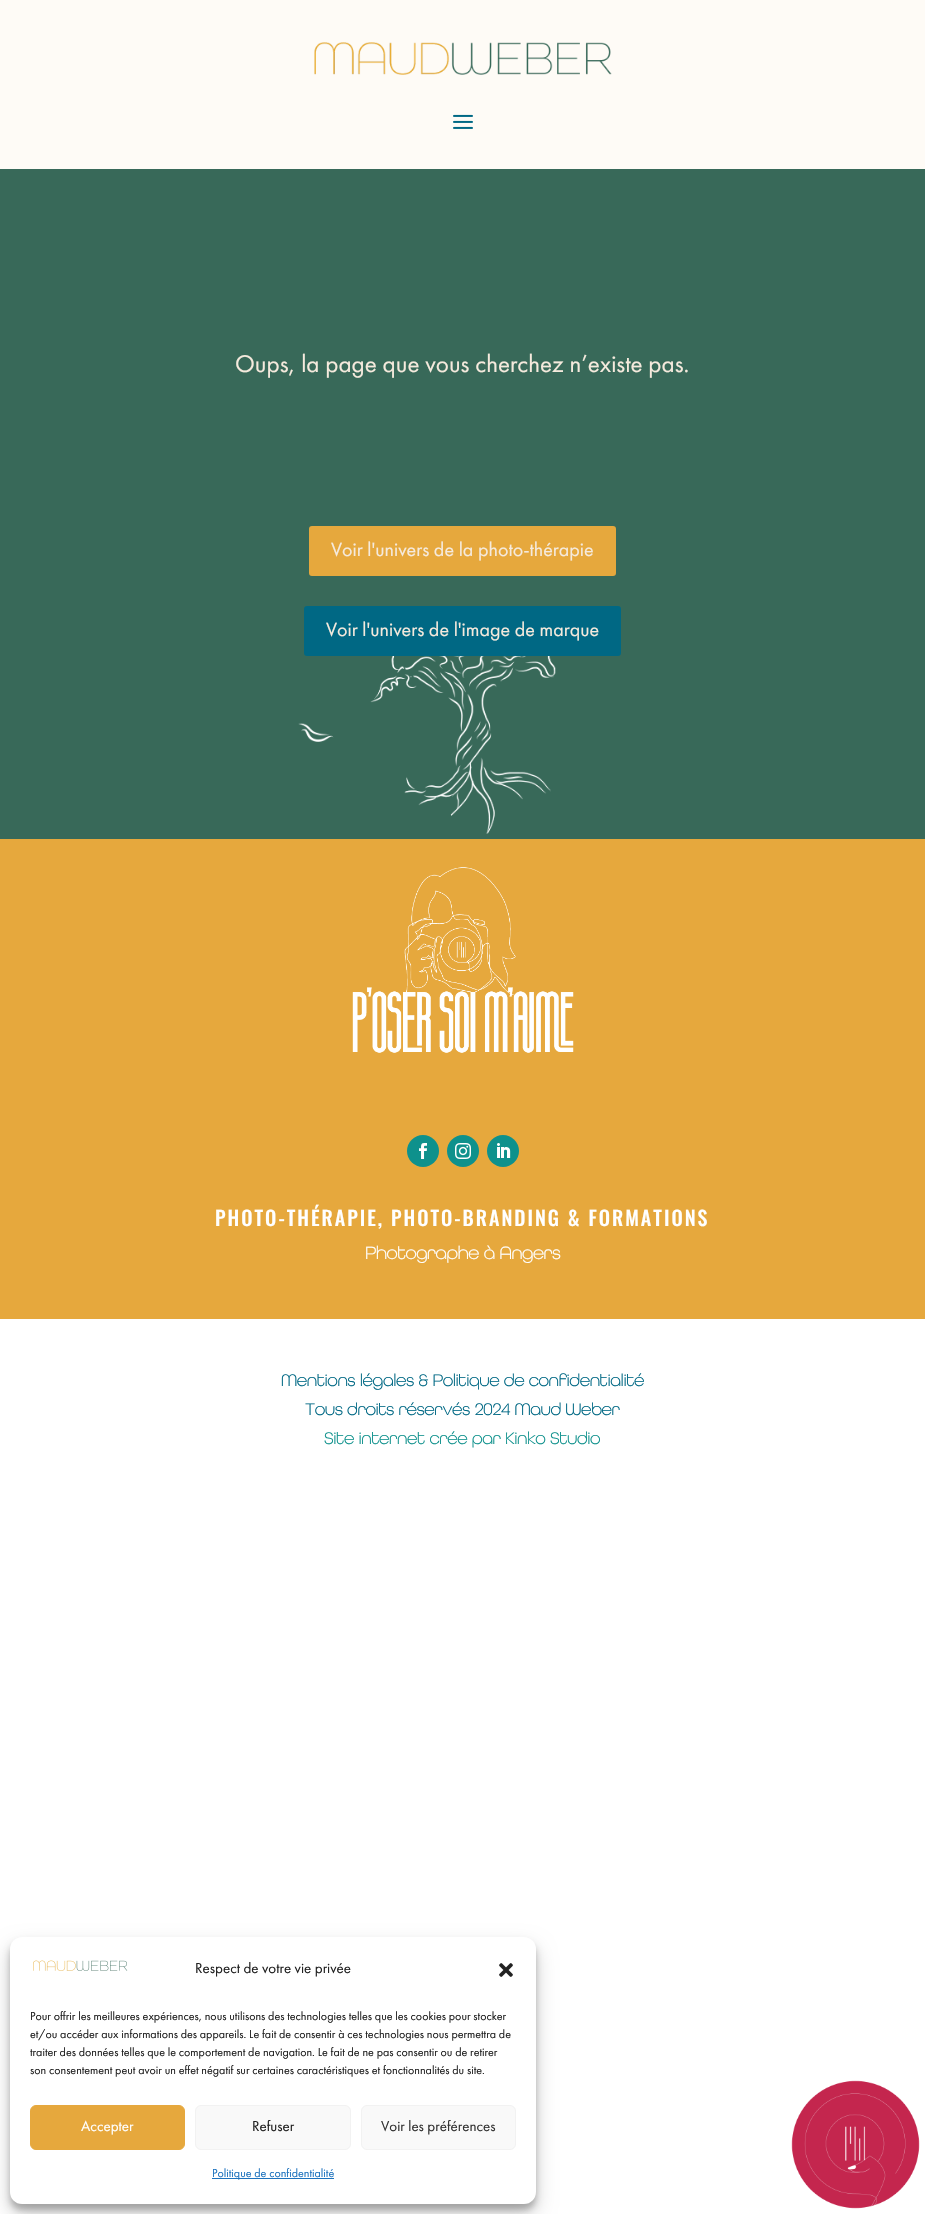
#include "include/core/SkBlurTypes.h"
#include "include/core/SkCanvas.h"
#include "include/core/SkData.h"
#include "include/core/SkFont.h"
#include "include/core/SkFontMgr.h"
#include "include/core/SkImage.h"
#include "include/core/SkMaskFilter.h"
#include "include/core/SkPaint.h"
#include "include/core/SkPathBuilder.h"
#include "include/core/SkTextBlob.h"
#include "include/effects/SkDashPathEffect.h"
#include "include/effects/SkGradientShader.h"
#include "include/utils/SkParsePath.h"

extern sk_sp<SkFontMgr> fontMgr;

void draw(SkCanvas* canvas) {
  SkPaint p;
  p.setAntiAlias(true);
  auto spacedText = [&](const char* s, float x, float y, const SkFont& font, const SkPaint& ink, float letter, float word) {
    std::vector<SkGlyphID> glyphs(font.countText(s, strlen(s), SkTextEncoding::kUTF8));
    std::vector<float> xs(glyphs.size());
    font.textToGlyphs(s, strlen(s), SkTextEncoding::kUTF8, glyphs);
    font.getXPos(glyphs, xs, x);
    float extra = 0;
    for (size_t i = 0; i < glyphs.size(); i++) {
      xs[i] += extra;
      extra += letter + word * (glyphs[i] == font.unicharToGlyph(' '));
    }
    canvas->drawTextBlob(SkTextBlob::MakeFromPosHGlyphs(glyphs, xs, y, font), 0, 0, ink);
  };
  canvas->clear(SK_ColorWHITE);
  p.setColor(SkColorSetRGB(254, 251, 246));
  canvas->drawRect(SkRect::MakeLTRB(0, 0, 925, 169), p);
  canvas->drawImageRect(SkImages::DeferredFromEncodedData(SkData::MakeFromFileName("images/1.png")), SkRect::MakeLTRB(314, 42, 612, 75), SkSamplingOptions());
  canvas->drawImageRect(SkImages::DeferredFromEncodedData(SkData::MakeFromFileName("images/2.png")), SkRect::MakeLTRB(453, 114, 473, 129), SkSamplingOptions());
  canvas->drawImageRect(SkImages::DeferredFromEncodedData(SkData::MakeFromFileName("images/3.png")), SkRect::MakeLTRB(791, 2080, 920, 2209), SkSamplingOptions());
  p.setColor(SkColorSetRGB(56, 105, 89));
  canvas->drawRect(SkRect::MakeLTRB(0, 169, 925, 839), p);
  canvas->drawImageRect(SkImages::DeferredFromEncodedData(SkData::MakeFromFileName("images/4.png")), SkRect::MakeLTRB(298, 656, 556, 834), SkSamplingOptions());
  p.setColor(SkColorSetRGB(230, 168, 61));
  canvas->drawRoundRect(SkRect::MakeLTRB(310, 527, 615, 575), 2, 2, p);
  p.setStyle(SkPaint::kStroke_Style);
  p.setStrokeWidth(2);
  canvas->drawRoundRect(SkRect::MakeLTRB(310, 527, 615, 575), 2, 2, p);
  p.setStyle(SkPaint::kFill_Style);
  p.setColor(SkColorSetRGB(0, 104, 132));
  canvas->drawRoundRect(SkRect::MakeLTRB(305, 607, 620, 655), 2, 2, p);
  p.setStyle(SkPaint::kStroke_Style);
  canvas->drawRoundRect(SkRect::MakeLTRB(305, 607, 620, 655), 2, 2, p);
  p.setStyle(SkPaint::kFill_Style);
  p.setColor(SkColorSetRGB(230, 168, 61));
  canvas->drawRect(SkRect::MakeLTRB(0, 839, 925, 1319), p);
  canvas->drawImageRect(SkImages::DeferredFromEncodedData(SkData::MakeFromFileName("images/5.png")), SkRect::MakeLTRB(352, 867, 574, 1053), SkSamplingOptions());
  p.setColor(SkColorSetRGB(14, 145, 140));
  canvas->drawCircle(423, 1151, 16, p);
  canvas->drawImageRect(SkImages::DeferredFromEncodedData(SkData::MakeFromFileName("images/6.png")), SkRect::MakeLTRB(419, 1143, 427, 1159), SkSamplingOptions());
  canvas->drawCircle(463, 1151, 16, p);
  canvas->drawImageRect(SkImages::DeferredFromEncodedData(SkData::MakeFromFileName("images/7.png")), SkRect::MakeLTRB(455, 1143, 471, 1159), SkSamplingOptions());
  canvas->drawCircle(503, 1151, 16, p);
  canvas->drawImageRect(SkImages::DeferredFromEncodedData(SkData::MakeFromFileName("images/8.png")), SkRect::MakeLTRB(497, 1143, 511, 1158), SkSamplingOptions());
  p.setColor(SkColorSetARGB(59, 0, 0, 0));
  p.setMaskFilter(SkMaskFilter::MakeBlur(kNormal_SkBlurStyle, 3));
  canvas->drawRoundRect(SkRect::MakeLTRB(10, 1943, 536, 2210), 12, 12, p);
  p.setMaskFilter(nullptr);
  p.setColor(SkColorSetARGB(48, 0, 0, 0));
  p.setMaskFilter(SkMaskFilter::MakeBlur(kNormal_SkBlurStyle, 10));
  canvas->drawRoundRect(SkRect::MakeLTRB(10, 1947, 536, 2214), 12, 12, p);
  p.setMaskFilter(nullptr);
  p.setColor(SK_ColorWHITE);
  canvas->drawRoundRect(SkRect::MakeLTRB(10, 1937, 536, 2204), 12, 12, p);
  canvas->drawImageRect(SkImages::DeferredFromEncodedData(SkData::MakeFromFileName("images/9.png")), SkRect::MakeLTRB(33, 1960, 128, 1971), SkSamplingOptions());
  canvas->drawImageRect(SkImages::DeferredFromEncodedData(SkData::MakeFromFileName("images/10.png")), SkRect::MakeLTRB(499, 1963, 513, 1977), SkSamplingOptions());
  p.setColor(SkColorSetRGB(230, 168, 61));
  canvas->drawRoundRect(SkRect::MakeLTRB(30.5f, 2105.5f, 184.5f, 2149.5f), 5.5f, 5.5f, p);
  p.setStyle(SkPaint::kStroke_Style);
  p.setStrokeWidth(1);
  canvas->drawRoundRect(SkRect::MakeLTRB(30.5f, 2105.5f, 184.5f, 2149.5f), 5.5f, 5.5f, p);
  p.setStyle(SkPaint::kFill_Style);
  p.setColor(SkColorSetRGB(249, 249, 249));
  canvas->drawRoundRect(SkRect::MakeLTRB(195.5f, 2105.5f, 350.5f, 2149.5f), 5.5f, 5.5f, p);
  p.setStyle(SkPaint::kStroke_Style);
  p.setColor(SkColorSetRGB(242, 242, 242));
  canvas->drawRoundRect(SkRect::MakeLTRB(195.5f, 2105.5f, 350.5f, 2149.5f), 5.5f, 5.5f, p);
  p.setStyle(SkPaint::kFill_Style);
  p.setColor(SkColorSetRGB(249, 249, 249));
  canvas->drawRoundRect(SkRect::MakeLTRB(361.5f, 2105.5f, 515.5f, 2149.5f), 5.5f, 5.5f, p);
  p.setStyle(SkPaint::kStroke_Style);
  p.setColor(SkColorSetRGB(242, 242, 242));
  canvas->drawRoundRect(SkRect::MakeLTRB(361.5f, 2105.5f, 515.5f, 2149.5f), 5.5f, 5.5f, p);
  p.setStyle(SkPaint::kFill_Style);
  p.setColor(SkColorSetRGB(30, 115, 190));
  canvas->drawRect(SkRect::MakeLTRB(212, 2178, 334, 2179), p);
  SkFont font1(fontMgr->matchFamilyStyle("Futura PT", SkFontStyle::Normal()), 25);
  font1.setSubpixel(true);
  p.setColor(SkColorSetRGB(245, 234, 221));
  canvas->drawString("Oups, la page que vous cherchez n’existe pas.", 235, 372, font1, p);
  SkFont font2(fontMgr->matchFamilyStyle("Futura PT", SkFontStyle::Normal()), 20);
  font2.setSubpixel(true);
  canvas->drawString("Voir l'univers de la photo-thérapie", 331, 556, font2, p);
  canvas->drawString("Voir l'univers de l'image de marque", 326, 636, font2, p);
  SkFont font3(fontMgr->matchFamilyStyle("Oswald", SkFontStyle(500, SkFontStyle::kNormal_Width, SkFontStyle::kUpright_Slant)), 20);
  font3.setSubpixel(true);
  p.setColor(SK_ColorWHITE);
  spacedText("PHOTO-THÉRAPIE, PHOTO-BRANDING & FORMATIONS", 215, 1226, font3, p, 2, 0);
  SkFont font4(fontMgr->matchFamilyStyle("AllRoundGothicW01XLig", SkFontStyle::Bold()), 18);
  font4.setSubpixel(true);
  canvas->drawString("Photographe à Angers", 365, 1259, font4, p);
  SkFont font5(fontMgr->matchFamilyStyle("AllRoundGothicW01XLig", SkFontStyle::Bold()), 17);
  font5.setSubpixel(true);
  p.setColor(SkColorSetRGB(0, 104, 132));
  canvas->drawString("Mentions légales & Politique de confidentialité", 281, 1386, font5, p);
  canvas->drawString("Tous droits réservés 2024 Maud Weber", 305, 1415, font5, p);
  p.setColor(SkColorSetRGB(14, 145, 140));
  canvas->drawString("Site internet crée par Kinko Studio", 324, 1444, font5, p);
  SkFont font6(fontMgr->matchFamilyStyle("Futura PT", SkFontStyle::Normal()), 15);
  font6.setSubpixel(true);
  p.setColor(SkColorSetRGB(34, 34, 34));
  canvas->drawString("Respect de votre vie privée", 195, 1973, font6, p);
  SkFont font7(fontMgr->matchFamilyStyle("Futura PT", SkFontStyle::Normal()), 12);
  font7.setSubpixel(true);
  canvas->drawString("Pour offrir les meilleures expériences, nous utilisons des technologies telles que les cookies pour stocker", 30, 2020, font7, p);
  canvas->drawString("et/ou accéder aux informations des appareils. Le fait de consentir à ces technologies nous permettra de", 30, 2038, font7, p);
  canvas->drawString("traiter des données telles que le comportement de navigation. Le fait de ne pas consentir ou de retirer", 30, 2056, font7, p);
  canvas->drawString("son consentement peut avoir un effet négatif sur certaines caractéristiques et fonctionnalités du site.", 30, 2074, font7, p);
  p.setColor(SK_ColorWHITE);
  canvas->drawString("Accepter", 81, 2131, font6, p);
  p.setColor(SkColorSetRGB(34, 34, 34));
  canvas->drawString("Refuser", 252, 2131, font6, p);
  p.setColor(SkColorSetRGB(51, 51, 51));
  canvas->drawString("Voir les préférences", 381, 2131, font6, p);
  p.setColor(SkColorSetRGB(30, 115, 190));
  canvas->drawString("Politique de confidentialité", 212, 2177, font7, p);
}
